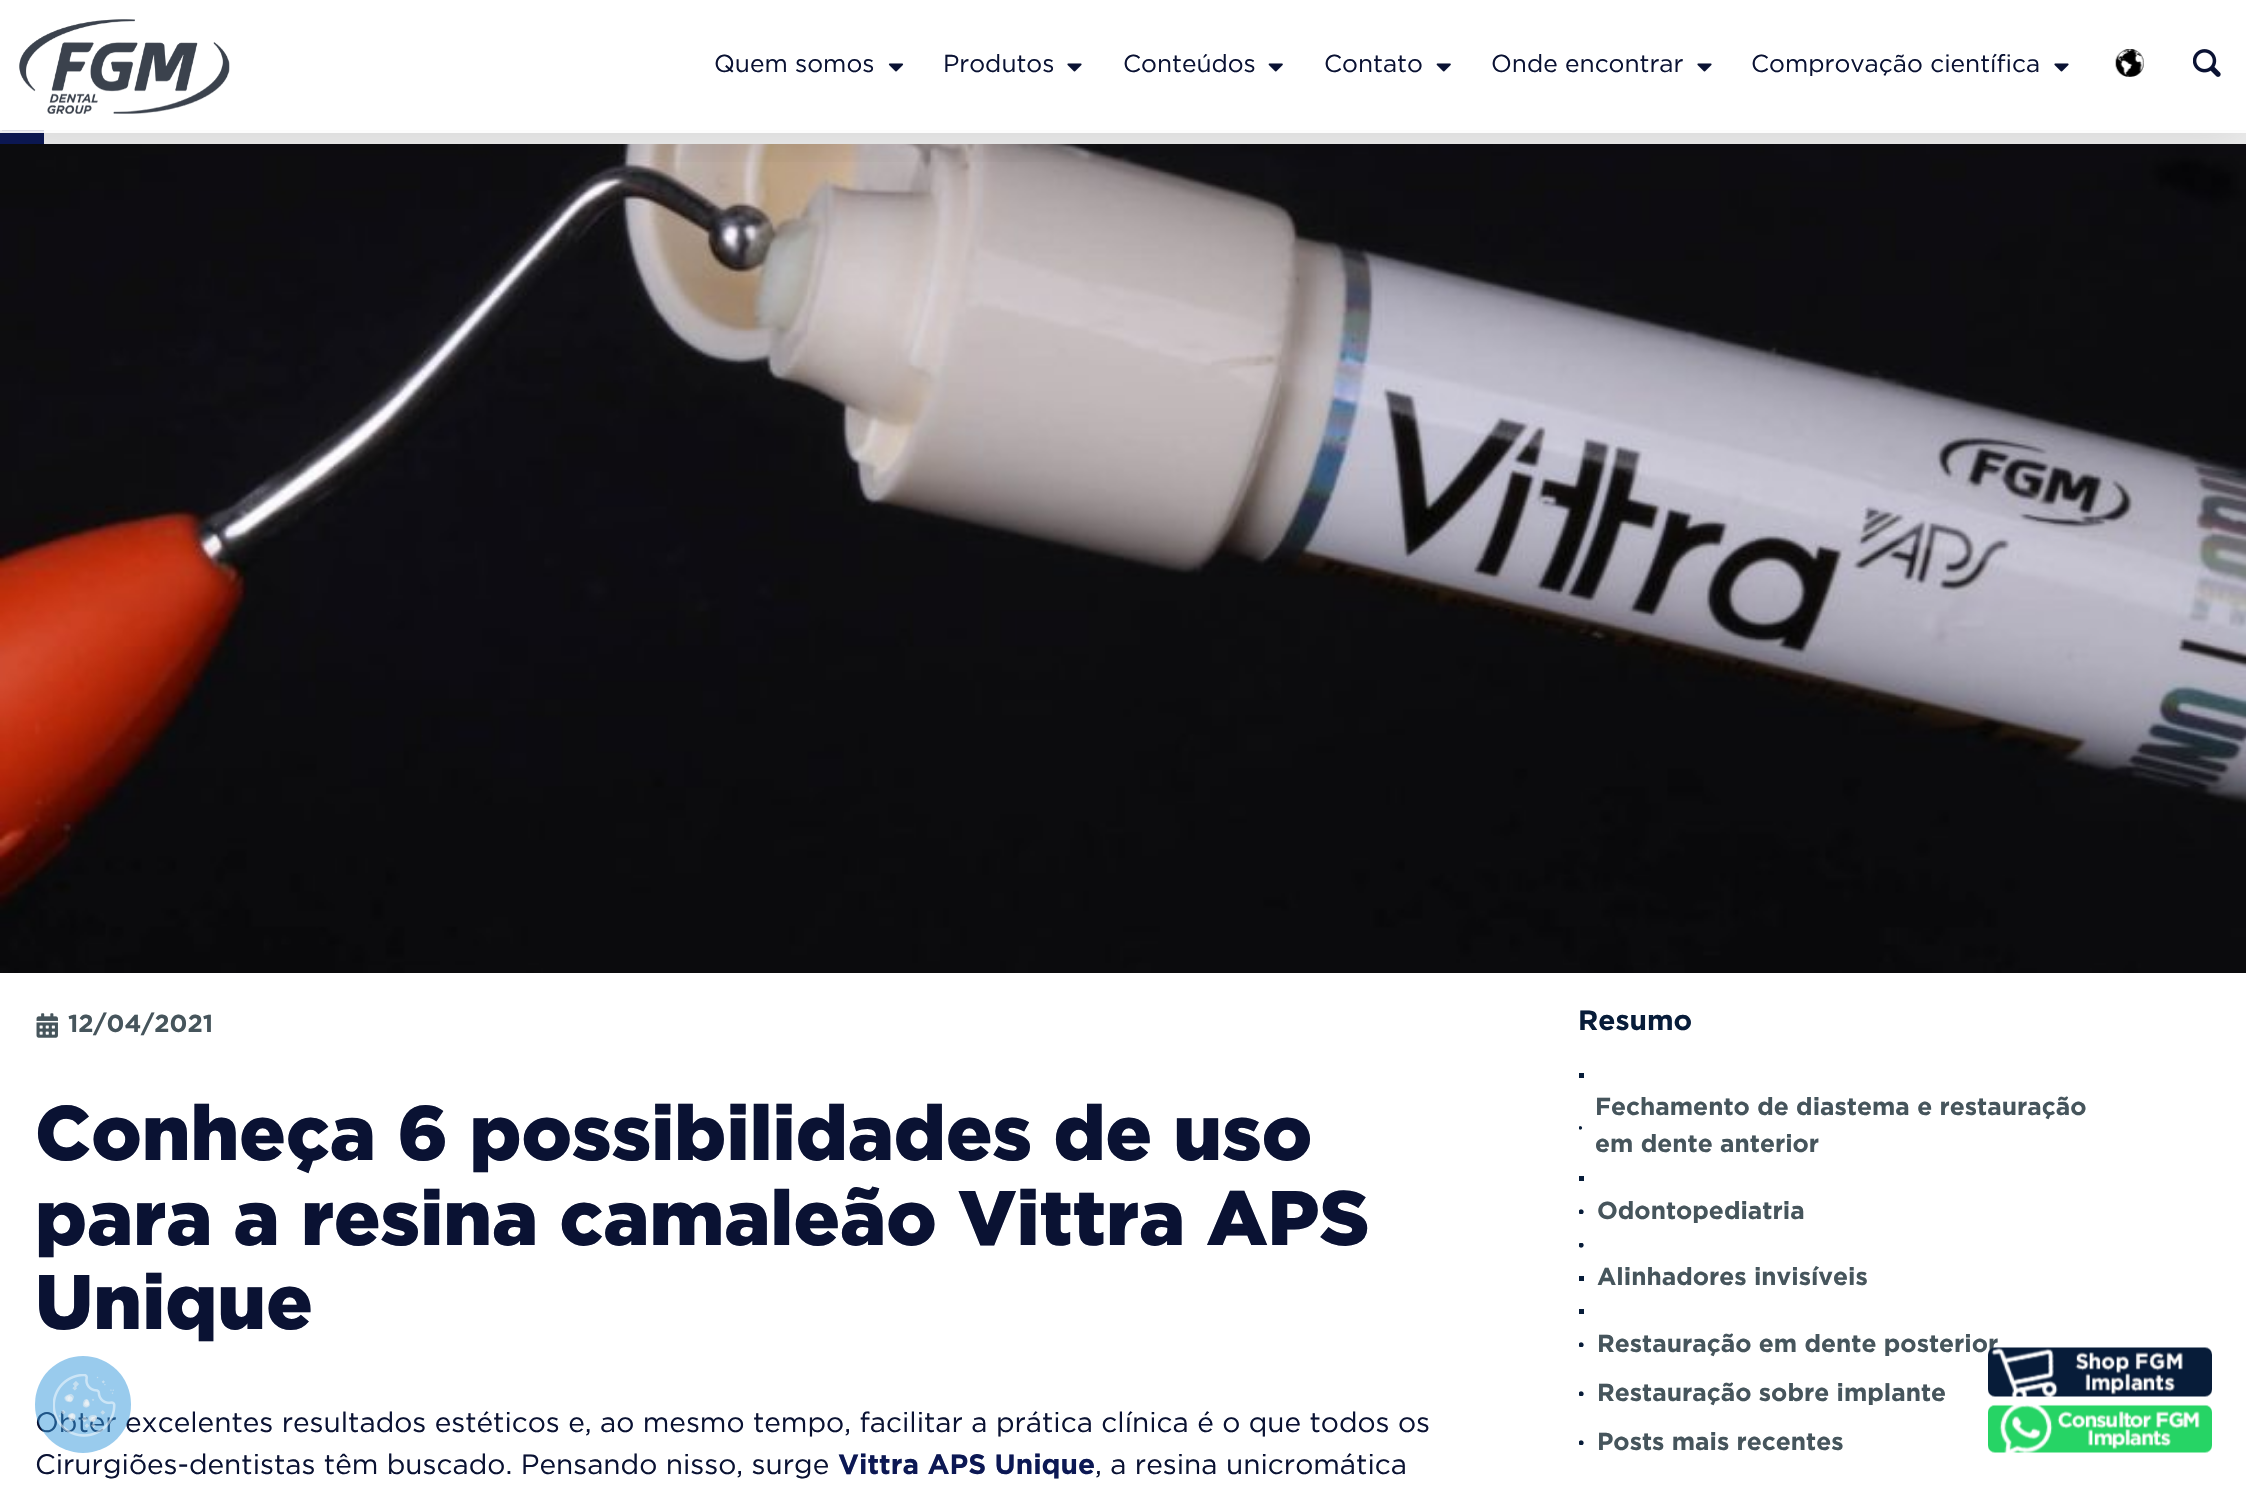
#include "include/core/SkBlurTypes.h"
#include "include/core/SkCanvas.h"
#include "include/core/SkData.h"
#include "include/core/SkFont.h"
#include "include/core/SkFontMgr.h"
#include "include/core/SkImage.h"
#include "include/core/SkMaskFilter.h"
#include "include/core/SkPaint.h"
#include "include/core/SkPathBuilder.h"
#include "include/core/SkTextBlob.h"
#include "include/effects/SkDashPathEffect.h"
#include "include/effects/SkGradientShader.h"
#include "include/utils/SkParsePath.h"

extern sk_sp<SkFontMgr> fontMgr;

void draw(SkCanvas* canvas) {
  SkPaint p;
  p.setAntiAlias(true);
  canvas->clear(SK_ColorWHITE);
  canvas->drawImageRect(SkImages::DeferredFromEncodedData(SkData::MakeFromFileName("images/7.png")), SkRect::MakeLTRB(0, 144, 2246, 973), SkSamplingOptions());
  p.setColor(SkColorSetRGB(238, 238, 238));
  canvas->drawRect(SkRect::MakeLTRB(44, 133, 2246, 144), p);
  p.setColor(SkColorSetRGB(252, 252, 252));
  canvas->drawRect(SkRect::MakeLTRB(44, 130, 2246, 133), p);
  p.setColor(SkColorSetRGB(12, 24, 84));
  canvas->drawRect(SkRect::MakeLTRB(0, 133, 44, 144), p);
  p.setColor(SkColorSetRGB(216, 218, 228));
  canvas->drawRect(SkRect::MakeLTRB(0, 130, 44, 133), p);
  canvas->save();
  canvas->clipRect(SkRect::MakeLTRB(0, 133, 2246, 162));
  p.setColor(SkColorSetARGB(26, 0, 0, 0));
  p.setMaskFilter(SkMaskFilter::MakeBlur(kNormal_SkBlurStyle, 26));
  canvas->drawRect(SkRect::MakeLTRB(0, 7, 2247, 140), p);
  p.setMaskFilter(nullptr);
  canvas->restore();
  p.setStyle(SkPaint::kStroke_Style);
  p.setStrokeWidth(2);
  p.setColor(SkColorSetARGB(122, 255, 255, 255));
  canvas->drawRect(SkRect::MakeLTRB(1, 1, 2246, 132), p);
  canvas->drawImageRect(SkImages::DeferredFromEncodedData(SkData::MakeFromFileName("images/1.png")), SkRect::MakeLTRB(19, 19, 230, 114), SkSamplingOptions());
  canvas->drawImageRect(SkImages::DeferredFromEncodedData(SkData::MakeFromFileName("images/2.png")), SkRect::MakeLTRB(888, 63, 904, 72), SkSamplingOptions());
  canvas->drawImageRect(SkImages::DeferredFromEncodedData(SkData::MakeFromFileName("images/3.png")), SkRect::MakeLTRB(1067, 63, 1082, 72), SkSamplingOptions());
  canvas->drawImageRect(SkImages::DeferredFromEncodedData(SkData::MakeFromFileName("images/4.png")), SkRect::MakeLTRB(1268, 63, 1283, 72), SkSamplingOptions());
  canvas->drawImageRect(SkImages::DeferredFromEncodedData(SkData::MakeFromFileName("images/4.png")), SkRect::MakeLTRB(1436, 63, 1451, 72), SkSamplingOptions());
  canvas->drawImageRect(SkImages::DeferredFromEncodedData(SkData::MakeFromFileName("images/3.png")), SkRect::MakeLTRB(1697, 63, 1712, 72), SkSamplingOptions());
  canvas->drawImageRect(SkImages::DeferredFromEncodedData(SkData::MakeFromFileName("images/3.png")), SkRect::MakeLTRB(2054, 63, 2069, 72), SkSamplingOptions());
  canvas->drawImageRect(SkImages::DeferredFromEncodedData(SkData::MakeFromFileName("images/5.png")), SkRect::MakeLTRB(2115, 49, 2144, 77), SkSamplingOptions());
  canvas->drawImageRect(SkImages::DeferredFromEncodedData(SkData::MakeFromFileName("images/6.png")), SkRect::MakeLTRB(2193, 49, 2221, 77), SkSamplingOptions());
  canvas->drawImageRect(SkImages::DeferredFromEncodedData(SkData::MakeFromFileName("images/8.png")), SkRect::MakeLTRB(36, 1013, 58, 1038), SkSamplingOptions());
  p.setStyle(SkPaint::kFill_Style);
  p.setColor(SkColorSetRGB(7, 28, 57));
  canvas->drawRect(SkRect::MakeLTRB(1579, 1073, 1584, 1078), p);
  canvas->drawImageRect(SkImages::DeferredFromEncodedData(SkData::MakeFromFileName("images/9.png")), SkRect::MakeLTRB(1579, 1126, 1583, 1130), SkSamplingOptions());
  canvas->drawRect(SkRect::MakeLTRB(1579, 1176, 1584, 1181), p);
  canvas->drawImageRect(SkImages::DeferredFromEncodedData(SkData::MakeFromFileName("images/10.png")), SkRect::MakeLTRB(1579, 1209, 1584, 1214), SkSamplingOptions());
  canvas->drawImageRect(SkImages::DeferredFromEncodedData(SkData::MakeFromFileName("images/11.png")), SkRect::MakeLTRB(1579, 1243, 1584, 1248), SkSamplingOptions());
  canvas->drawRect(SkRect::MakeLTRB(1579, 1276, 1584, 1281), p);
  canvas->drawRect(SkRect::MakeLTRB(1579, 1309, 1584, 1314), p);
  canvas->drawImageRect(SkImages::DeferredFromEncodedData(SkData::MakeFromFileName("images/10.png")), SkRect::MakeLTRB(1579, 1342, 1584, 1347), SkSamplingOptions());
  canvas->drawImageRect(SkImages::DeferredFromEncodedData(SkData::MakeFromFileName("images/10.png")), SkRect::MakeLTRB(1579, 1391, 1584, 1396), SkSamplingOptions());
  canvas->drawImageRect(SkImages::DeferredFromEncodedData(SkData::MakeFromFileName("images/10.png")), SkRect::MakeLTRB(1579, 1440, 1584, 1445), SkSamplingOptions());
  canvas->drawImageRect(SkImages::DeferredFromEncodedData(SkData::MakeFromFileName("images/13.png")), SkRect::MakeLTRB(1988, 1404, 2212, 1453), SkSamplingOptions());
  SkFont font1(fontMgr->matchFamilyStyle("Gotham", SkFontStyle::Normal()), 24.5f);
  font1.setSubpixel(true);
  p.setColor(SkColorSetRGB(10, 18, 51));
  canvas->drawString("Quem somos", 714, 72, font1, p);
  canvas->drawString("Produtos", 943, 72, font1, p);
  canvas->drawString("Conteúdos", 1123, 72, font1, p);
  canvas->drawString("Contato", 1324, 72, font1, p);
  canvas->drawString("Onde encontrar", 1491, 72, font1, p);
  canvas->drawString("Comprovação científica", 1751, 72, font1, p);
  SkFont font2(fontMgr->matchFamilyStyle("Gotham", SkFontStyle::Bold()), 24.5f);
  font2.setSubpixel(true);
  p.setColor(SkColorSetRGB(70, 85, 92));
  canvas->drawString("12/04/2021", 68, 1032, font2, p);
  SkFont font3(fontMgr->matchFamilyStyle("Gotham", SkFontStyle(900, SkFontStyle::kNormal_Width, SkFontStyle::kUpright_Slant)), 77);
  font3.setSubpixel(true);
  p.setColor(SkColorSetRGB(10, 18, 51));
  canvas->drawString("Conheça 6 possibilidades de uso", 35, 1160, font3, p);
  canvas->drawString("para a resina camaleão Vittra APS", 35, 1245, font3, p);
  canvas->drawString("Unique", 35, 1329, font3, p);
  SkFont font4(fontMgr->matchFamilyStyle("Gotham", SkFontStyle::Normal()), 28);
  font4.setSubpixel(true);
  canvas->drawString("Obter excelentes resultados estéticos e, ao mesmo tempo, facilitar a prática clínica é o que todos os", 35, 1432, font4, p);
  canvas->drawString("Cirurgiões-dentistas têm buscado. Pensando nisso, surge", 35, 1474, font4, p);
  SkFont font5(fontMgr->matchFamilyStyle("Gotham", SkFontStyle::Bold()), 28);
  font5.setSubpixel(true);
  p.setColor(SkColorSetRGB(12, 24, 84));
  canvas->drawString("Vittra APS Unique", 838, 1474, font5, p);
  p.setColor(SkColorSetRGB(10, 18, 51));
  canvas->drawString(", a resina unicromática", 1095, 1474, font4, p);
  p.setColor(SkColorSetRGB(7, 28, 57));
  canvas->drawString("Resumo", 1578, 1030, font5, p);
  p.setColor(SkColorSetRGB(70, 85, 92));
  canvas->drawString("Fechamento de diastema e restauração", 1595, 1115, font2, p);
  canvas->drawString("em dente anterior", 1595, 1152, font2, p);
  canvas->drawString("Odontopediatria", 1597, 1219, font2, p);
  canvas->drawString("Alinhadores invisíveis", 1597, 1285, font2, p);
  canvas->drawString("Restauração em dente posterior", 1597, 1352, font2, p);
  canvas->drawString("Restauração sobre implante", 1597, 1401, font2, p);
  canvas->drawString("Posts mais recentes", 1597, 1450, font2, p);
  canvas->drawImageRect(SkImages::DeferredFromEncodedData(SkData::MakeFromFileName("images/12.png")), SkRect::MakeLTRB(1988, 1347, 2212, 1397), SkSamplingOptions());
  p.setColor(SkColorSetARGB(128, 52, 152, 219));
  canvas->drawRoundRect(SkRect::MakeLTRB(35, 1356, 131, 1453), 48, 48, p);
  canvas->drawImageRect(SkImages::DeferredFromEncodedData(SkData::MakeFromFileName("images/14.png")), SkRect::MakeLTRB(53, 1374, 116, 1437), SkSamplingOptions());
}
